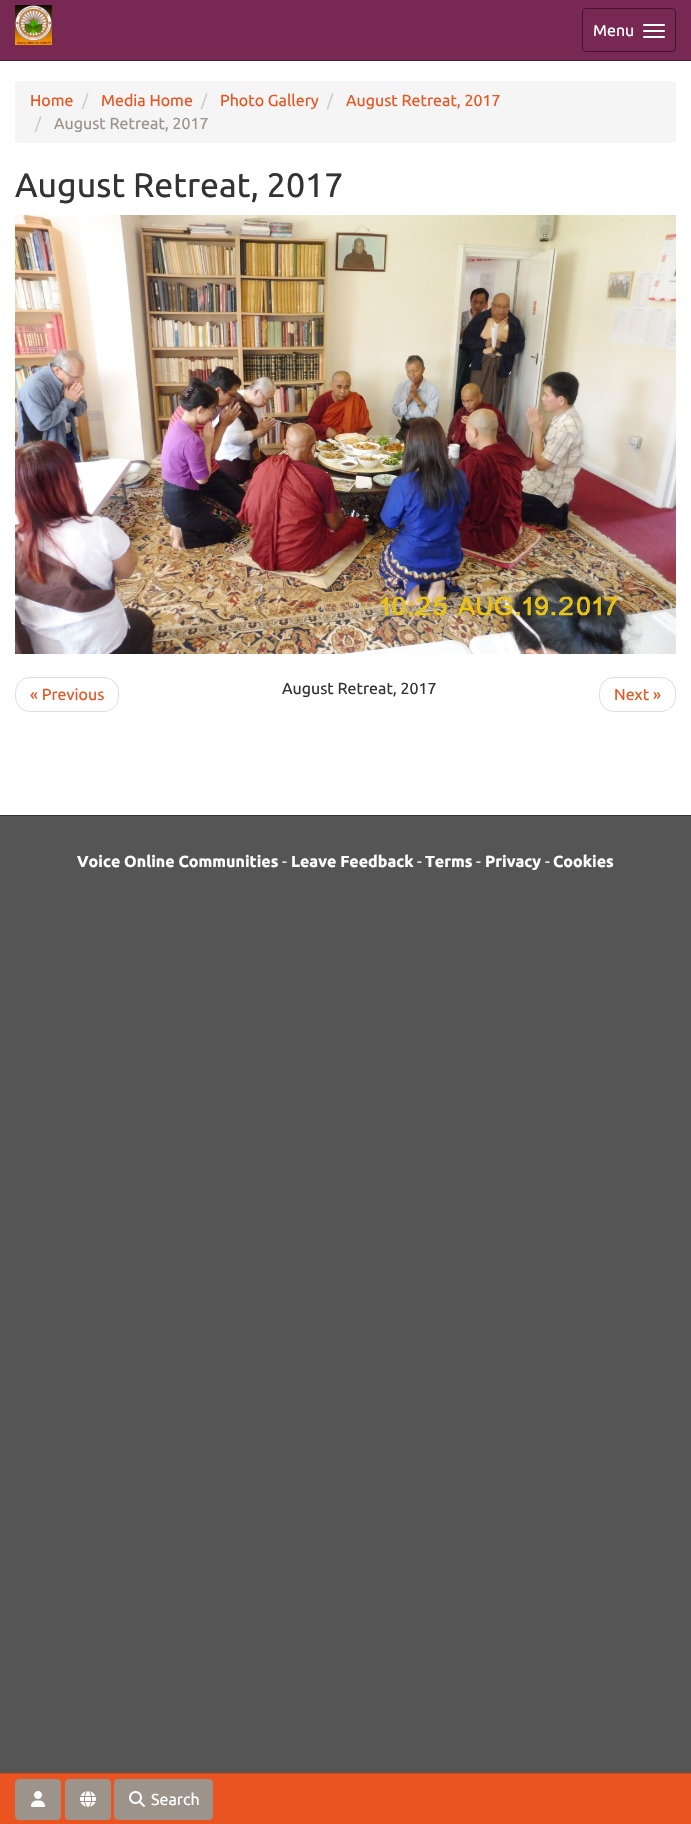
#include "include/core/SkBlurTypes.h"
#include "include/core/SkCanvas.h"
#include "include/core/SkData.h"
#include "include/core/SkFont.h"
#include "include/core/SkFontMgr.h"
#include "include/core/SkImage.h"
#include "include/core/SkMaskFilter.h"
#include "include/core/SkPaint.h"
#include "include/core/SkPathBuilder.h"
#include "include/core/SkTextBlob.h"
#include "include/effects/SkDashPathEffect.h"
#include "include/effects/SkGradientShader.h"
#include "include/utils/SkParsePath.h"

extern sk_sp<SkFontMgr> fontMgr;

void draw(SkCanvas* canvas) {
  SkPaint p;
  p.setAntiAlias(true);
  canvas->clear(SK_ColorWHITE);
  p.setColor(SkColorSetRGB(119, 41, 83));
  canvas->drawRect(SkRect::MakeLTRB(0, 0, 691, 60), p);
  p.setColor(SkColorSetRGB(81, 28, 57));
  canvas->drawRect(SkRect::MakeLTRB(0, 60, 691, 61), p);
  canvas->drawImageRect(SkImages::DeferredFromEncodedData(SkData::MakeFromFileName("images/1.png")), SkRect::MakeLTRB(15, 5, 52, 45), SkSamplingOptions());
  p.setStyle(SkPaint::kStroke_Style);
  p.setStrokeWidth(1);
  p.setColor(SkColorSetRGB(62, 21, 43));
  canvas->drawRoundRect(SkRect::MakeLTRB(582.5f, 8.5f, 675.5f, 51.5f), 3.5f, 3.5f, p);
  p.setStyle(SkPaint::kFill_Style);
  p.setColor(SK_ColorWHITE);
  canvas->drawRoundRect(SkRect::MakeLTRB(643, 24, 665, 26), 1, 1, p);
  canvas->drawRoundRect(SkRect::MakeLTRB(643, 30, 665, 32), 1, 1, p);
  canvas->drawRoundRect(SkRect::MakeLTRB(643, 36, 665, 38), 1, 1, p);
  p.setColor(SkColorSetRGB(245, 245, 245));
  canvas->drawRoundRect(SkRect::MakeLTRB(15, 81, 676, 143), 4, 4, p);
  canvas->drawImageRect(SkImages::DeferredFromEncodedData(SkData::MakeFromFileName("images/2.png")), SkRect::MakeLTRB(15, 215, 676, 654), SkSamplingOptions());
  p.setStyle(SkPaint::kStroke_Style);
  p.setColor(SkColorSetRGB(221, 221, 221));
  canvas->drawRoundRect(SkRect::MakeLTRB(15.5f, 677.5f, 118.5f, 711.5f), 14.5f, 14.5f, p);
  canvas->drawRoundRect(SkRect::MakeLTRB(599.5f, 677.5f, 675.5f, 711.5f), 14.5f, 14.5f, p);
  p.setStyle(SkPaint::kFill_Style);
  p.setColor(SkColorSetRGB(85, 85, 85));
  canvas->drawPath(SkPathBuilder().moveTo(-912, 815).lineTo(-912, 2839).lineTo(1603, 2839).lineTo(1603, 815).lineTo(691, 815).lineTo(691, 1015).lineTo(0, 1015).lineTo(0, 815).close().detach(), p);
  canvas->drawRect(SkRect::MakeLTRB(0, 816, 691, 1015), p);
  p.setColor(SkColorSetRGB(51, 51, 51));
  canvas->drawRect(SkRect::MakeLTRB(0, 815, 691, 816), p);
  p.setColor(SkColorSetRGB(233, 84, 32));
  canvas->drawRect(SkRect::MakeLTRB(0, 1774, 691, 1824), p);
  p.setColor(SkColorSetRGB(211, 70, 21));
  canvas->drawRect(SkRect::MakeLTRB(0, 1773, 691, 1774), p);
  p.setColor(SkColorSetRGB(156, 147, 139));
  canvas->drawRoundRect(SkRect::MakeLTRB(15.5f, 1779.5f, 60.5f, 1819.5f), 3.5f, 3.5f, p);
  p.setStyle(SkPaint::kStroke_Style);
  canvas->drawRoundRect(SkRect::MakeLTRB(15.5f, 1779.5f, 60.5f, 1819.5f), 3.5f, 3.5f, p);
  canvas->drawImageRect(SkImages::DeferredFromEncodedData(SkData::MakeFromFileName("images/3.png")), SkRect::MakeLTRB(31, 1791, 45, 1807), SkSamplingOptions());
  p.setStyle(SkPaint::kFill_Style);
  canvas->drawRoundRect(SkRect::MakeLTRB(65.5f, 1779.5f, 110.5f, 1819.5f), 3.5f, 3.5f, p);
  p.setStyle(SkPaint::kStroke_Style);
  canvas->drawRoundRect(SkRect::MakeLTRB(65.5f, 1779.5f, 110.5f, 1819.5f), 3.5f, 3.5f, p);
  canvas->drawImageRect(SkImages::DeferredFromEncodedData(SkData::MakeFromFileName("images/4.png")), SkRect::MakeLTRB(80, 1791, 96, 1807), SkSamplingOptions());
  p.setStyle(SkPaint::kFill_Style);
  canvas->drawRoundRect(SkRect::MakeLTRB(114.5f, 1779.5f, 212.5f, 1819.5f), 3.5f, 3.5f, p);
  p.setStyle(SkPaint::kStroke_Style);
  canvas->drawRoundRect(SkRect::MakeLTRB(114.5f, 1779.5f, 212.5f, 1819.5f), 3.5f, 3.5f, p);
  canvas->drawImageRect(SkImages::DeferredFromEncodedData(SkData::MakeFromFileName("images/5.png")), SkRect::MakeLTRB(129, 1791, 145, 1807), SkSamplingOptions());
  SkFont font1(fontMgr->matchFamilyStyle("Ubuntu", SkFontStyle::Normal()), 16);
  font1.setSubpixel(true);
  p.setStyle(SkPaint::kFill_Style);
  p.setColor(SK_ColorWHITE);
  canvas->drawString("Menu", 593, 36, font1, p);
  p.setColor(SkColorSetRGB(233, 84, 32));
  canvas->drawString("Home", 30, 106, font1, p);
  p.setColor(SkColorSetRGB(204, 204, 204));
  canvas->drawString("/", 82, 106, font1, p);
  p.setColor(SkColorSetRGB(233, 84, 32));
  canvas->drawString("Media Home", 101, 106, font1, p);
  p.setColor(SkColorSetRGB(204, 204, 204));
  canvas->drawString("/", 201, 106, font1, p);
  p.setColor(SkColorSetRGB(233, 84, 32));
  canvas->drawString("Photo Gallery", 220, 106, font1, p);
  p.setColor(SkColorSetRGB(204, 204, 204));
  canvas->drawString("/", 327, 106, font1, p);
  p.setColor(SkColorSetRGB(233, 84, 32));
  canvas->drawString("August Retreat, 2017", 346, 106, font1, p);
  p.setColor(SkColorSetRGB(204, 204, 204));
  canvas->drawString("/", 35, 129, font1, p);
  p.setColor(SkColorSetRGB(156, 147, 139));
  canvas->drawString("August Retreat, 2017", 54, 129, font1, p);
  SkFont font2(fontMgr->matchFamilyStyle("Ubuntu", SkFontStyle::Normal()), 34);
  font2.setSubpixel(true);
  p.setColor(SkColorSetRGB(51, 51, 51));
  canvas->drawString("August Retreat, 2017", 15, 197, font2, p);
  p.setColor(SkColorSetRGB(233, 84, 32));
  canvas->drawString("« Previous", 30, 700, font1, p);
  p.setColor(SkColorSetRGB(51, 51, 51));
  canvas->drawString("August Retreat, 2017", 282, 694, font1, p);
  p.setColor(SkColorSetRGB(233, 84, 32));
  canvas->drawString("Next »", 614, 700, font1, p);
  SkFont font3(fontMgr->matchFamilyStyle("Ubuntu", SkFontStyle::Bold()), 16);
  font3.setSubpixel(true);
  p.setColor(SK_ColorWHITE);
  canvas->drawString("Voice Online Communities", 77, 867, font3, p);
  p.setColor(SkColorSetRGB(238, 238, 238));
  canvas->drawString("-", 282, 867, font1, p);
  p.setColor(SK_ColorWHITE);
  canvas->drawString("Leave Feedback", 291, 867, font3, p);
  p.setColor(SkColorSetRGB(238, 238, 238));
  canvas->drawString("-", 417, 867, font1, p);
  p.setColor(SK_ColorWHITE);
  canvas->drawString("Terms", 425, 867, font3, p);
  p.setColor(SkColorSetRGB(238, 238, 238));
  canvas->drawString("-", 476, 867, font1, p);
  p.setColor(SK_ColorWHITE);
  canvas->drawString("Privacy", 485, 867, font3, p);
  p.setColor(SkColorSetRGB(238, 238, 238));
  canvas->drawString("-", 545, 867, font1, p);
  p.setColor(SK_ColorWHITE);
  canvas->drawString("Cookies", 553, 867, font3, p);
  canvas->drawString("Search", 151, 1805, font1, p);
}
